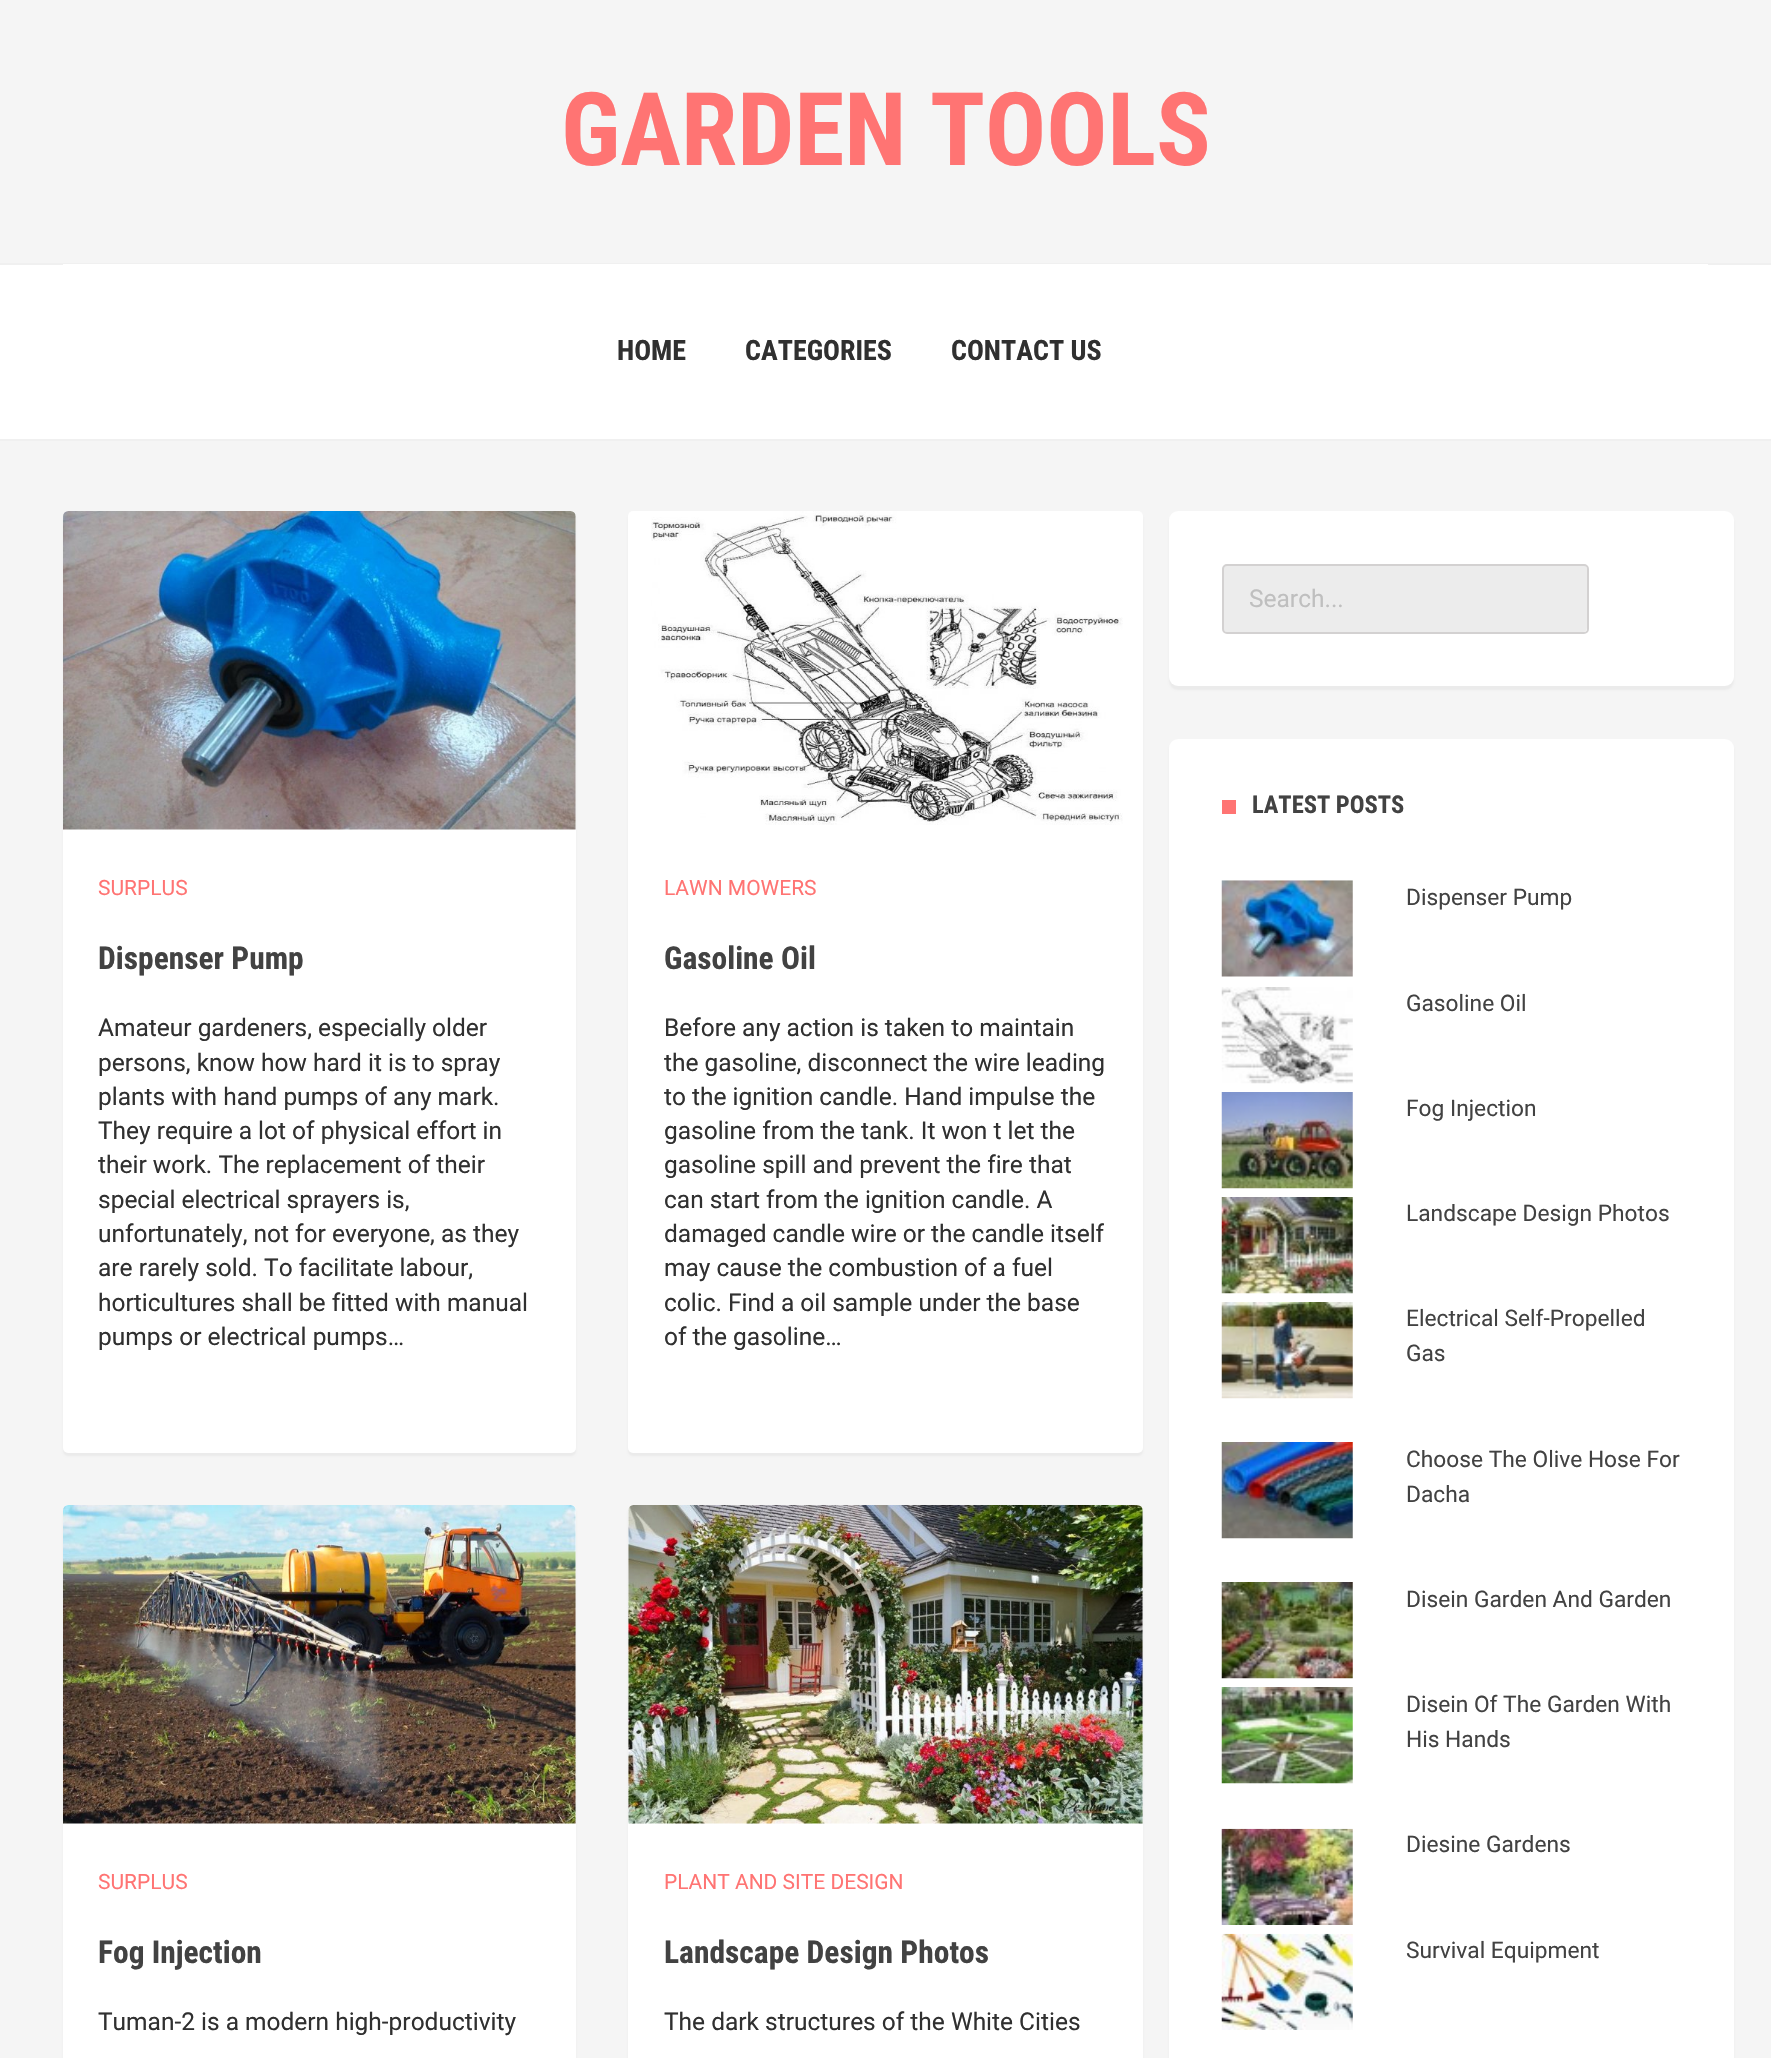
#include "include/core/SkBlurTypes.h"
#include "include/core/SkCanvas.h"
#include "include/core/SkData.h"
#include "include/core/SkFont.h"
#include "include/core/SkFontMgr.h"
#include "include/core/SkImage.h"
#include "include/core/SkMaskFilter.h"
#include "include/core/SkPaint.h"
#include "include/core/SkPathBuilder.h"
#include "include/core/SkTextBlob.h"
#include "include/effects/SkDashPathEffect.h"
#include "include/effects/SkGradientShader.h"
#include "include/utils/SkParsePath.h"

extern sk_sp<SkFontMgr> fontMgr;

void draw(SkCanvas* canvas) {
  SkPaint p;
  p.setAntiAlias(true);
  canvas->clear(SkColorSetRGB(245, 245, 245));
  p.setColor(SK_ColorWHITE);
  canvas->drawRect(SkRect::MakeLTRB(0, 265, 1771, 439), p);
  p.setColor(SkColorSetRGB(240, 240, 240));
  canvas->drawRect(SkRect::MakeLTRB(0, 263, 1771, 265), p);
  canvas->drawRect(SkRect::MakeLTRB(0, 439, 1771, 441), p);
  p.setColor(SK_ColorWHITE);
  canvas->drawRect(SkRect::MakeLTRB(63, 264, 1708, 265), p);
  p.setColor(SkColorSetRGB(235, 235, 235));
  p.setMaskFilter(SkMaskFilter::MakeBlur(kNormal_SkBlurStyle, 1));
  canvas->drawRoundRect(SkRect::MakeLTRB(1169, 515, 1734, 690), 9, 9, p);
  p.setMaskFilter(nullptr);
  p.setColor(SK_ColorWHITE);
  canvas->drawRoundRect(SkRect::MakeLTRB(1169, 511, 1734, 686), 9, 9, p);
  p.setColor(SkColorSetRGB(236, 236, 236));
  canvas->drawPath(SkPathBuilder().moveTo(1227, 565).cubicTo(1225, 565, 1223, 567, 1223, 569).lineTo(1223, 628).cubicTo(1223, 630, 1225, 632, 1227, 632).lineTo(1583, 632).cubicTo(1585, 632, 1587, 630, 1587, 628).lineTo(1587, 569).cubicTo(1587, 567, 1585, 565, 1583, 565).close().detach(), p);
  p.setStyle(SkPaint::kStroke_Style);
  p.setStrokeWidth(2);
  p.setColor(SkColorSetRGB(211, 209, 209));
  canvas->drawRoundRect(SkRect::MakeLTRB(1223, 565, 1588, 633), 4, 4, p);
  p.setStyle(SkPaint::kFill_Style);
  p.setColor(SkColorSetRGB(235, 235, 235));
  p.setMaskFilter(SkMaskFilter::MakeBlur(kNormal_SkBlurStyle, 1));
  canvas->drawRoundRect(SkRect::MakeLTRB(63, 515, 576, 1456), 5, 5, p);
  p.setMaskFilter(nullptr);
  p.setColor(SK_ColorWHITE);
  canvas->drawRoundRect(SkRect::MakeLTRB(63, 511, 576, 1453), 5, 5, p);
  canvas->drawImageRect(SkImages::DeferredFromEncodedData(SkData::MakeFromFileName("images/1.png")), SkRect::MakeLTRB(63, 511, 576, 830), SkSamplingOptions());
  p.setColor(SkColorSetRGB(235, 235, 235));
  p.setMaskFilter(SkMaskFilter::MakeBlur(kNormal_SkBlurStyle, 1));
  canvas->drawRoundRect(SkRect::MakeLTRB(628, 515, 1143, 1456), 5, 5, p);
  p.setMaskFilter(nullptr);
  p.setColor(SK_ColorWHITE);
  canvas->drawRoundRect(SkRect::MakeLTRB(628, 511, 1143, 1453), 5, 5, p);
  canvas->drawImageRect(SkImages::DeferredFromEncodedData(SkData::MakeFromFileName("images/2.png")), SkRect::MakeLTRB(651, 511, 1123, 825), SkSamplingOptions());
  p.setColor(SkColorSetRGB(235, 235, 235));
  p.setMaskFilter(SkMaskFilter::MakeBlur(kNormal_SkBlurStyle, 1));
  canvas->drawRoundRect(SkRect::MakeLTRB(63, 1509, 576, 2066), 5, 5, p);
  p.setMaskFilter(nullptr);
  p.setColor(SK_ColorWHITE);
  canvas->drawRoundRect(SkRect::MakeLTRB(63, 1505, 576, 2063), 5, 5, p);
  canvas->drawImageRect(SkImages::DeferredFromEncodedData(SkData::MakeFromFileName("images/3.png")), SkRect::MakeLTRB(63, 1505, 576, 1824), SkSamplingOptions());
  p.setColor(SkColorSetRGB(235, 235, 235));
  p.setMaskFilter(SkMaskFilter::MakeBlur(kNormal_SkBlurStyle, 1));
  canvas->drawRoundRect(SkRect::MakeLTRB(628, 1509, 1143, 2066), 5, 5, p);
  p.setMaskFilter(nullptr);
  p.setColor(SK_ColorWHITE);
  canvas->drawRoundRect(SkRect::MakeLTRB(628, 1505, 1143, 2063), 5, 5, p);
  canvas->drawImageRect(SkImages::DeferredFromEncodedData(SkData::MakeFromFileName("images/4.png")), SkRect::MakeLTRB(628, 1505, 1143, 1824), SkSamplingOptions());
  p.setColor(SkColorSetRGB(235, 235, 235));
  p.setMaskFilter(SkMaskFilter::MakeBlur(kNormal_SkBlurStyle, 1));
  canvas->drawRoundRect(SkRect::MakeLTRB(1169, 742, 1734, 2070), 9, 9, p);
  p.setMaskFilter(nullptr);
  p.setColor(SK_ColorWHITE);
  canvas->drawRoundRect(SkRect::MakeLTRB(1169, 739, 1734, 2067), 9, 9, p);
  p.setColor(SkColorSetRGB(255, 116, 115));
  canvas->drawRect(SkRect::MakeLTRB(1222, 800, 1236, 814), p);
  canvas->drawImageRect(SkImages::DeferredFromEncodedData(SkData::MakeFromFileName("images/5.png")), SkRect::MakeLTRB(1221, 880, 1353, 977), SkSamplingOptions());
  canvas->drawImageRect(SkImages::DeferredFromEncodedData(SkData::MakeFromFileName("images/6.png")), SkRect::MakeLTRB(1221, 987, 1353, 1084), SkSamplingOptions());
  canvas->drawImageRect(SkImages::DeferredFromEncodedData(SkData::MakeFromFileName("images/7.png")), SkRect::MakeLTRB(1221, 1092, 1353, 1189), SkSamplingOptions());
  canvas->drawImageRect(SkImages::DeferredFromEncodedData(SkData::MakeFromFileName("images/8.png")), SkRect::MakeLTRB(1221, 1197, 1353, 1294), SkSamplingOptions());
  canvas->drawImageRect(SkImages::DeferredFromEncodedData(SkData::MakeFromFileName("images/9.png")), SkRect::MakeLTRB(1221, 1302, 1353, 1399), SkSamplingOptions());
  canvas->drawImageRect(SkImages::DeferredFromEncodedData(SkData::MakeFromFileName("images/10.png")), SkRect::MakeLTRB(1221, 1442, 1353, 1539), SkSamplingOptions());
  canvas->drawImageRect(SkImages::DeferredFromEncodedData(SkData::MakeFromFileName("images/11.png")), SkRect::MakeLTRB(1221, 1582, 1353, 1679), SkSamplingOptions());
  canvas->drawImageRect(SkImages::DeferredFromEncodedData(SkData::MakeFromFileName("images/12.png")), SkRect::MakeLTRB(1221, 1687, 1353, 1784), SkSamplingOptions());
  canvas->drawImageRect(SkImages::DeferredFromEncodedData(SkData::MakeFromFileName("images/13.png")), SkRect::MakeLTRB(1221, 1828, 1353, 1925), SkSamplingOptions());
  canvas->drawImageRect(SkImages::DeferredFromEncodedData(SkData::MakeFromFileName("images/14.png")), SkRect::MakeLTRB(1221, 1933, 1353, 2030), SkSamplingOptions());
  SkFont font1(fontMgr->matchFamilyStyle("Roboto Condensed", SkFontStyle::Bold()), 101.5f);
  font1.setSubpixel(true);
  canvas->drawString("GARDEN TOOLS", 561, 165, font1, p);
  SkFont font2(fontMgr->matchFamilyStyle("Roboto Condensed", SkFontStyle::Bold()), 28);
  font2.setSubpixel(true);
  p.setColor(SkColorSetRGB(48, 48, 48));
  canvas->drawString("HOME", 617, 360, font2, p);
  canvas->drawString("CATEGORIES", 745, 360, font2, p);
  canvas->drawString("CONTACT US", 951, 360, font2, p);
  SkFont font3(fontMgr->matchFamilyStyle("Roboto", SkFontStyle::Normal()), 24.5f);
  font3.setSubpixel(true);
  p.setColor(SkColorSetRGB(191, 191, 191));
  canvas->drawString("Search...", 1249, 607, font3, p);
  SkFont font4(fontMgr->matchFamilyStyle("Roboto", SkFontStyle::Normal()), 21);
  font4.setSubpixel(true);
  p.setColor(SkColorSetRGB(255, 116, 115));
  canvas->drawString("SURPLUS", 98, 895, font4, p);
  SkFont font5(fontMgr->matchFamilyStyle("Roboto Condensed", SkFontStyle::Bold()), 31.5f);
  font5.setSubpixel(true);
  p.setColor(SkColorSetRGB(66, 66, 66));
  canvas->drawString("Dispenser Pump", 98, 969, font5, p);
  p.setColor(SkColorSetRGB(48, 48, 48));
  canvas->drawString("Amateur gardeners, especially older", 98, 1036, font3, p);
  canvas->drawString("persons, know how hard it is to spray", 98, 1071, font3, p);
  canvas->drawString("plants with hand pumps of any mark.", 98, 1105, font3, p);
  canvas->drawString("They require a lot of physical effort in", 98, 1139, font3, p);
  canvas->drawString("their work. The replacement of their", 98, 1173, font3, p);
  canvas->drawString("special electrical sprayers is,", 98, 1208, font3, p);
  canvas->drawString("unfortunately, not for everyone, as they", 98, 1242, font3, p);
  canvas->drawString("are rarely sold. To facilitate labour,", 98, 1276, font3, p);
  canvas->drawString("horticultures shall be fitted with manual", 98, 1311, font3, p);
  canvas->drawString("pumps or electrical pumps…", 98, 1345, font3, p);
  p.setColor(SkColorSetRGB(255, 116, 115));
  canvas->drawString("LAWN MOWERS", 664, 895, font4, p);
  p.setColor(SkColorSetRGB(66, 66, 66));
  canvas->drawString("Gasoline Oil", 664, 969, font5, p);
  p.setColor(SkColorSetRGB(48, 48, 48));
  canvas->drawString("Before any action is taken to maintain", 664, 1036, font3, p);
  canvas->drawString("the gasoline, disconnect the wire leading", 664, 1071, font3, p);
  canvas->drawString("to the ignition candle. Hand impulse the", 664, 1105, font3, p);
  canvas->drawString("gasoline from the tank. It won t let the", 664, 1139, font3, p);
  canvas->drawString("gasoline spill and prevent the fire that", 664, 1173, font3, p);
  canvas->drawString("can start from the ignition candle. A", 664, 1208, font3, p);
  canvas->drawString("damaged candle wire or the candle itself", 664, 1242, font3, p);
  canvas->drawString("may cause the combustion of a fuel", 664, 1276, font3, p);
  canvas->drawString("colic. Find a oil sample under the base", 664, 1311, font3, p);
  canvas->drawString("of the gasoline…", 664, 1345, font3, p);
  p.setColor(SkColorSetRGB(255, 116, 115));
  canvas->drawString("SURPLUS", 98, 1889, font4, p);
  p.setColor(SkColorSetRGB(66, 66, 66));
  canvas->drawString("Fog Injection", 98, 1963, font5, p);
  p.setColor(SkColorSetRGB(48, 48, 48));
  canvas->drawString("Tuman-2 is a modern high-productivity", 98, 2030, font3, p);
  p.setColor(SkColorSetRGB(255, 116, 115));
  canvas->drawString("PLANT AND SITE DESIGN", 664, 1889, font4, p);
  p.setColor(SkColorSetRGB(66, 66, 66));
  canvas->drawString("Landscape Design Photos", 664, 1963, font5, p);
  p.setColor(SkColorSetRGB(48, 48, 48));
  canvas->drawString("The dark structures of the White Cities", 664, 2030, font3, p);
  SkFont font6(fontMgr->matchFamilyStyle("Roboto Condensed", SkFontStyle::Bold()), 24.5f);
  font6.setSubpixel(true);
  p.setColor(SkColorSetRGB(66, 66, 66));
  canvas->drawString("LATEST POSTS", 1252, 813, font6, p);
  SkFont font7(fontMgr->matchFamilyStyle("Roboto", SkFontStyle::Normal()), 22.75f);
  font7.setSubpixel(true);
  canvas->drawString("Dispenser Pump", 1406, 905, font7, p);
  canvas->drawString("Gasoline Oil", 1406, 1011, font7, p);
  canvas->drawString("Fog Injection", 1406, 1116, font7, p);
  canvas->drawString("Landscape Design Photos", 1406, 1221, font7, p);
  canvas->drawString("Electrical Self-Propelled", 1406, 1326, font7, p);
  canvas->drawString("Gas", 1406, 1361, font7, p);
  canvas->drawString("Choose The Olive Hose For", 1406, 1467, font7, p);
  canvas->drawString("Dacha", 1406, 1502, font7, p);
  canvas->drawString("Disein Garden And Garden", 1406, 1607, font7, p);
  canvas->drawString("Disein Of The Garden With", 1406, 1712, font7, p);
  canvas->drawString("His Hands", 1406, 1747, font7, p);
  canvas->drawString("Diesine Gardens", 1406, 1852, font7, p);
  canvas->drawString("Survival Equipment", 1406, 1958, font7, p);
}
